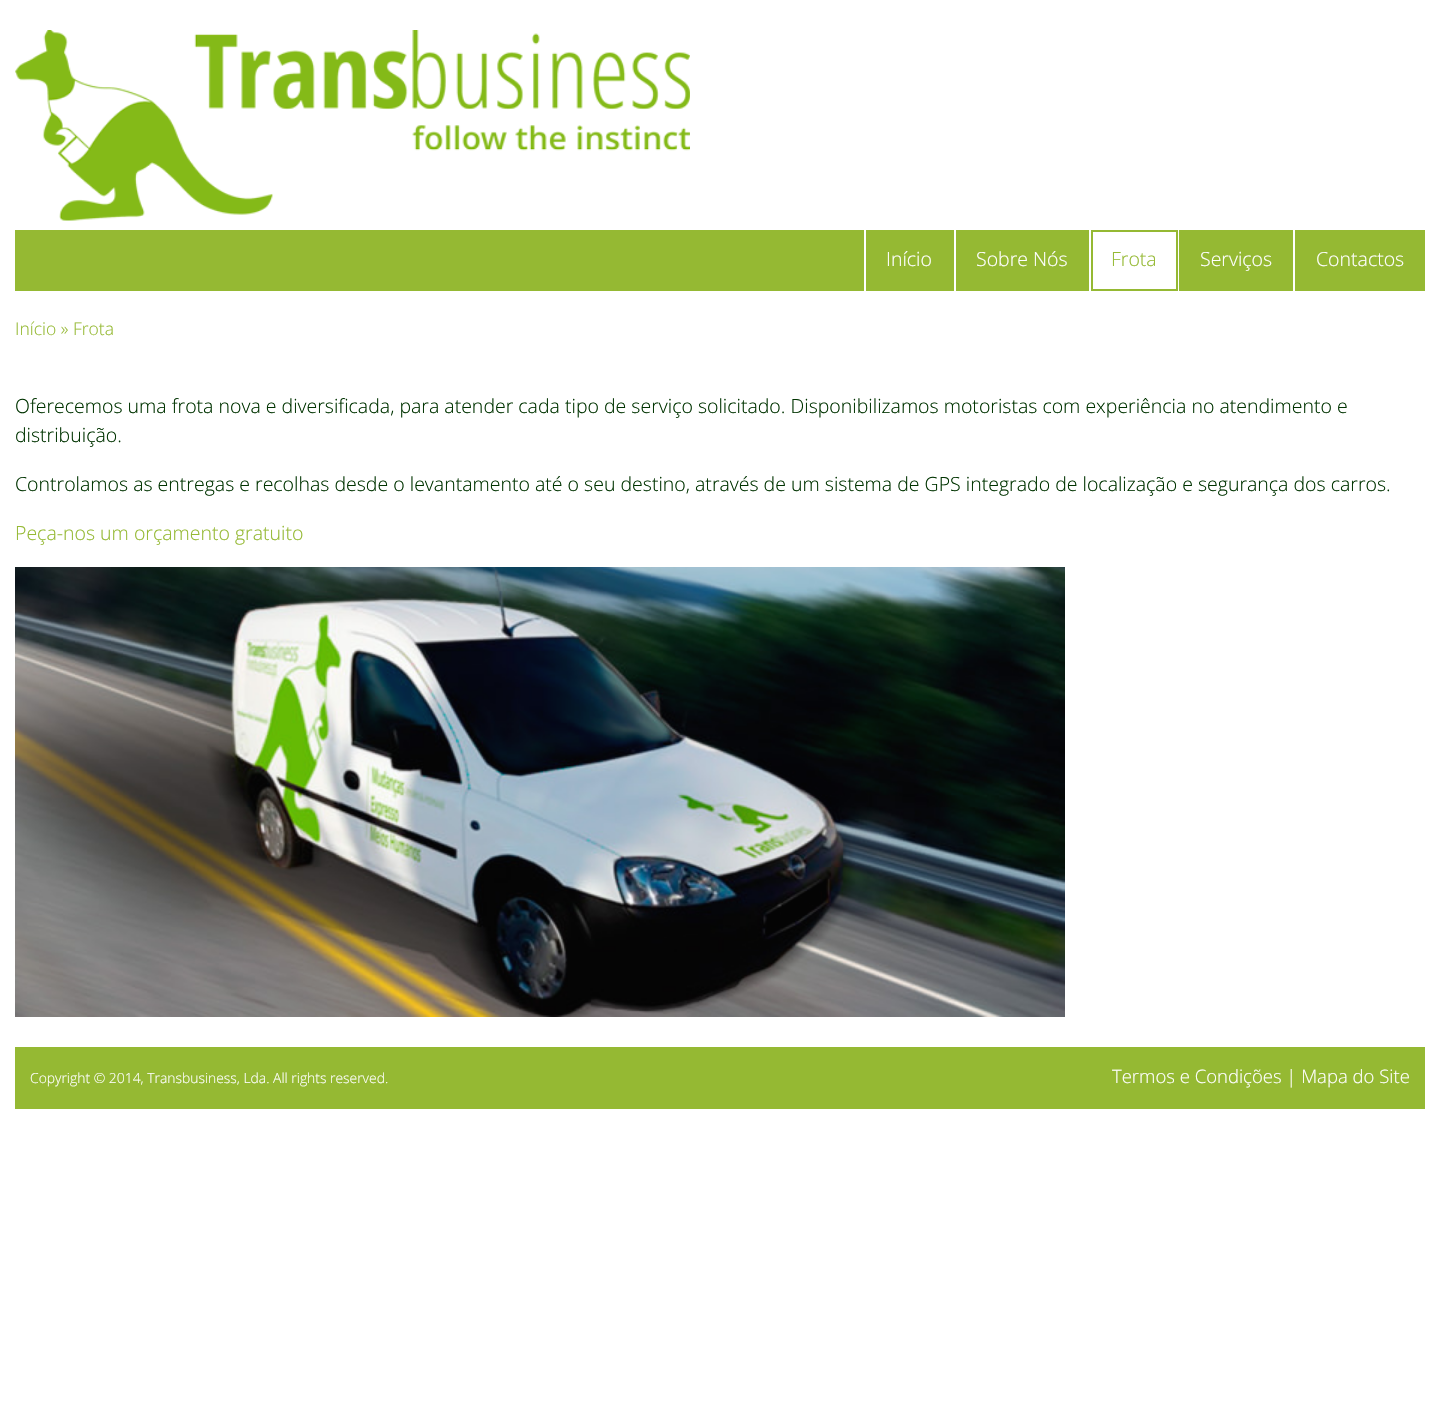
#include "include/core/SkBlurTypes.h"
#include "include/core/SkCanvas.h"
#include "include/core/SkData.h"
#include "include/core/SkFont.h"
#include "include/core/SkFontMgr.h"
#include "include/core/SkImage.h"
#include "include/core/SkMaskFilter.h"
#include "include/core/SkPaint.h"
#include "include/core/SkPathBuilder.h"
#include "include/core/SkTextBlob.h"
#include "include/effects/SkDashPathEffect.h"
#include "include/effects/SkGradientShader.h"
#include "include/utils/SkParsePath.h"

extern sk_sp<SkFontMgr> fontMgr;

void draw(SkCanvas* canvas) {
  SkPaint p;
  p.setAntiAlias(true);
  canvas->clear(SK_ColorWHITE);
  canvas->drawImageRect(SkImages::DeferredFromEncodedData(SkData::MakeFromFileName("images/1.png")), SkRect::MakeLTRB(15, 30, 690, 221), SkSamplingOptions());
  p.setColor(SkColorSetRGB(149, 185, 51));
  canvas->drawRect(SkRect::MakeLTRB(15, 230, 1425, 291), p);
  p.setColor(SK_ColorWHITE);
  canvas->drawRect(SkRect::MakeLTRB(864, 230, 866, 291), p);
  canvas->drawRect(SkRect::MakeLTRB(954, 230, 956, 291), p);
  canvas->drawRect(SkRect::MakeLTRB(1089, 230, 1091, 291), p);
  canvas->drawRect(SkRect::MakeLTRB(1093, 232, 1176, 289), p);
  canvas->drawRect(SkRect::MakeLTRB(1178, 230, 1179, 291), p);
  canvas->drawRect(SkRect::MakeLTRB(1293, 230, 1295, 291), p);
  canvas->drawImageRect(SkImages::DeferredFromEncodedData(SkData::MakeFromFileName("images/2.png")), SkRect::MakeLTRB(15, 567, 1065, 1017), SkSamplingOptions());
  p.setColor(SkColorSetRGB(149, 185, 51));
  canvas->drawRect(SkRect::MakeLTRB(15, 1047, 1425, 1109), p);
  SkFont font1(fontMgr->matchFamilyStyle("Open Sans", SkFontStyle(300, SkFontStyle::kNormal_Width, SkFontStyle::kUpright_Slant)), 19.5f);
  font1.setSubpixel(true);
  p.setColor(SK_ColorWHITE);
  canvas->drawString("Início", 886, 266, font1, p);
  canvas->drawString("Sobre Nós", 976, 266, font1, p);
  p.setColor(SkColorSetRGB(149, 185, 51));
  canvas->drawString("Frota", 1111, 266, font1, p);
  p.setColor(SK_ColorWHITE);
  canvas->drawString("Serviços", 1200, 266, font1, p);
  canvas->drawString("Contactos", 1316, 266, font1, p);
  SkFont font2(fontMgr->matchFamilyStyle("Open Sans", SkFontStyle(300, SkFontStyle::kNormal_Width, SkFontStyle::kUpright_Slant)), 17.5f);
  font2.setSubpixel(true);
  p.setColor(SkColorSetRGB(149, 185, 51));
  canvas->drawString("Início » Frota", 15, 335, font2, p);
  p.setColor(SkColorSetRGB(0, 51, 0));
  canvas->drawString("Oferecemos uma frota nova e diversificada, para atender cada tipo de serviço solicitado. Disponibilizamos motoristas com experiência no atendimento e", 15, 413, font1, p);
  canvas->drawString("distribuição.", 15, 442, font1, p);
  canvas->drawString("Controlamos as entregas e recolhas desde o levantamento até o seu destino, através de um sistema de GPS integrado de localização e segurança dos carros.", 15, 491, font1, p);
  p.setColor(SkColorSetRGB(149, 185, 51));
  canvas->drawString("Peça-nos um orçamento gratuito", 15, 540, font1, p);
  SkFont font3(fontMgr->matchFamilyStyle("Open Sans", SkFontStyle(300, SkFontStyle::kNormal_Width, SkFontStyle::kUpright_Slant)), 13.9f);
  font3.setSubpixel(true);
  p.setColor(SK_ColorWHITE);
  canvas->drawString("Copyright © 2014, Transbusiness, Lda. All rights reserved.", 30, 1083, font3, p);
  SkFont font4(fontMgr->matchFamilyStyle("Open Sans", SkFontStyle(300, SkFontStyle::kNormal_Width, SkFontStyle::kUpright_Slant)), 18.5f);
  font4.setSubpixel(true);
  canvas->drawString("Termos e Condições | Mapa do Site", 1112, 1083, font4, p);
}
